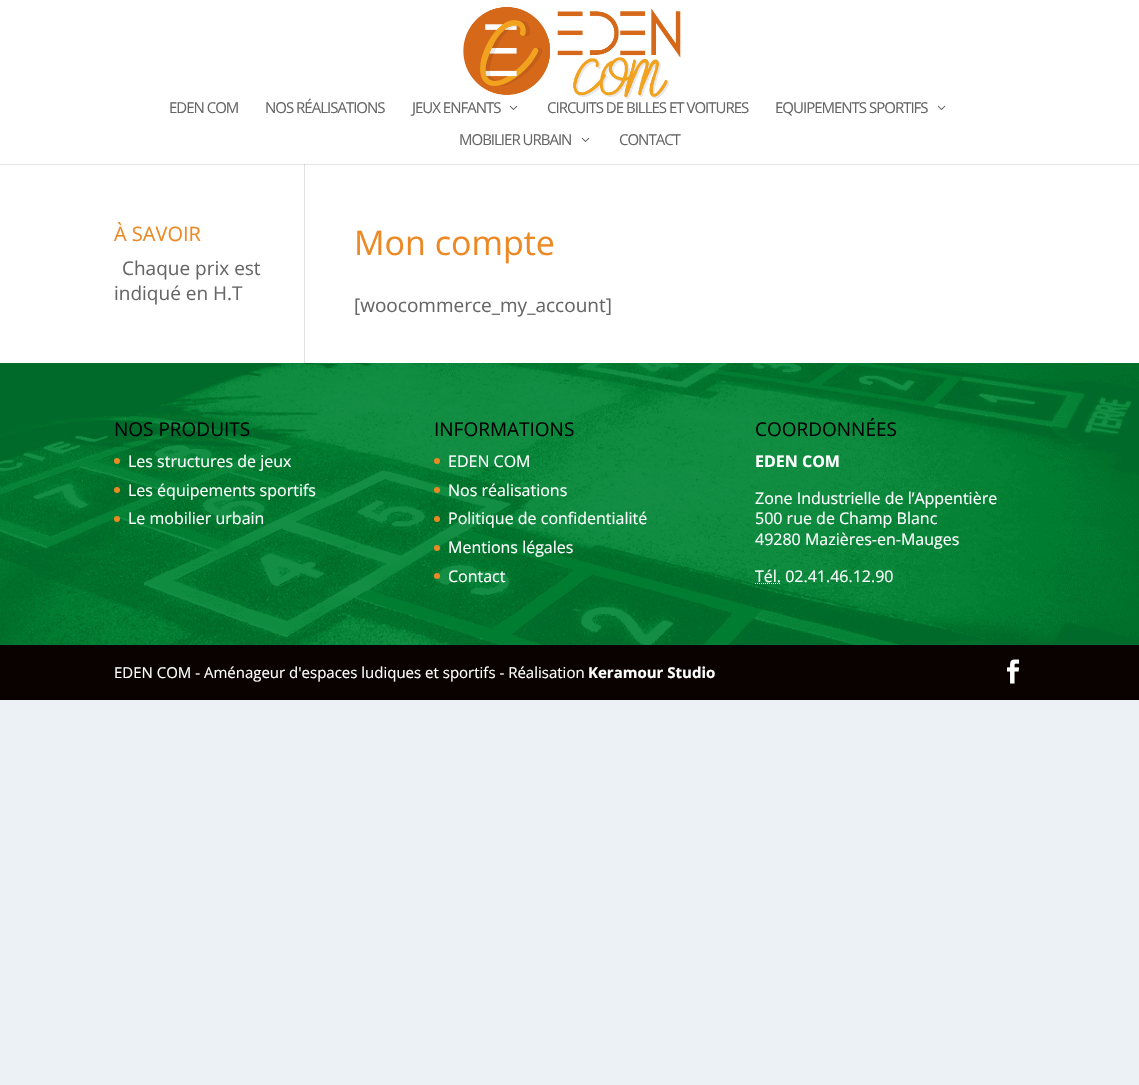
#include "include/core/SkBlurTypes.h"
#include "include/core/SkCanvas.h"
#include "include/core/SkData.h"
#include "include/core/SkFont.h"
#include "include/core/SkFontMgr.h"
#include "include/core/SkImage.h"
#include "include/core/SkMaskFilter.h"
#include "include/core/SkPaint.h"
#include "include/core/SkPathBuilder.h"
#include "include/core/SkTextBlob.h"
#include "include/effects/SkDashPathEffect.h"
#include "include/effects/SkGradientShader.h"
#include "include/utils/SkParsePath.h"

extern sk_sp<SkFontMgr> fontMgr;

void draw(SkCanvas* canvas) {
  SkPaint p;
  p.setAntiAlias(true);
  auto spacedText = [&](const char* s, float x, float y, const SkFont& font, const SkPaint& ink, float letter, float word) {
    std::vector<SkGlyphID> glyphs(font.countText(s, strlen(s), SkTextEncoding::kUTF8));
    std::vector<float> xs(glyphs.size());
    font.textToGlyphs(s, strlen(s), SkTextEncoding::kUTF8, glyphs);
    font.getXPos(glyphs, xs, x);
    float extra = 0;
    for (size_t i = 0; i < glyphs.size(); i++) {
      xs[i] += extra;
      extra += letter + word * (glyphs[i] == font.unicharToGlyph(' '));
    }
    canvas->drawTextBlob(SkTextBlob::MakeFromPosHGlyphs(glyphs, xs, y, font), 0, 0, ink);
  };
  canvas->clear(SkColorSetRGB(235, 241, 244));
  p.setColor(SK_ColorWHITE);
  canvas->drawRect(SkRect::MakeLTRB(0, 0, 1139, 164), p);
  canvas->drawImageRect(SkImages::DeferredFromEncodedData(SkData::MakeFromFileName("images/1.png")), SkRect::MakeLTRB(463, 6, 681, 99), SkSamplingOptions());
  canvas->drawImageRect(SkImages::DeferredFromEncodedData(SkData::MakeFromFileName("images/2.png")), SkRect::MakeLTRB(509, 105, 518, 110), SkSamplingOptions());
  canvas->drawImageRect(SkImages::DeferredFromEncodedData(SkData::MakeFromFileName("images/2.png")), SkRect::MakeLTRB(937, 105, 946, 110), SkSamplingOptions());
  canvas->drawImageRect(SkImages::DeferredFromEncodedData(SkData::MakeFromFileName("images/2.png")), SkRect::MakeLTRB(581, 137, 590, 142), SkSamplingOptions());
  canvas->drawRect(SkRect::MakeLTRB(0, 165, 1139, 363), p);
  p.setColor(SkColorSetRGB(230, 230, 230));
  canvas->drawRect(SkRect::MakeLTRB(0, 164, 1139, 165), p);
  p.setColor(SkColorSetRGB(226, 226, 226));
  canvas->drawRect(SkRect::MakeLTRB(304, 164, 305, 363), p);
  p.setColor(SkColorSetRGB(203, 203, 203));
  canvas->drawRect(SkRect::MakeLTRB(304, 164, 305, 165), p);
  canvas->drawImageRect(SkImages::DeferredFromEncodedData(SkData::MakeFromFileName("images/3.png")), SkRect::MakeLTRB(0, 363, 1139, 645), SkSamplingOptions());
  p.setColor(SkColorSetRGB(237, 137, 37));
  canvas->drawCircle(117, 461, 3, p);
  canvas->drawCircle(117, 490, 3, p);
  canvas->drawCircle(117, 519, 3, p);
  canvas->drawCircle(437, 461, 3, p);
  canvas->drawCircle(437, 490, 3, p);
  canvas->drawCircle(437, 519, 3, p);
  canvas->drawCircle(437, 548, 3, p);
  canvas->drawCircle(437, 576, 3, p);
  p.setStyle(SkPaint::kStroke_Style);
  p.setStrokeWidth(1);
  p.setColor(SK_ColorWHITE);
  p.setPathEffect(SkDashPathEffect::Make({{1, 1}}, 0));
  canvas->drawPath(SkPathBuilder().moveTo(755, 583.5f).lineTo(781, 583.5f).detach(), p);
  p.setPathEffect(nullptr);
  p.setStyle(SkPaint::kFill_Style);
  p.setColor(SkColorSetRGB(10, 2, 0));
  canvas->drawRect(SkRect::MakeLTRB(0, 645, 1139, 700), p);
  canvas->drawImageRect(SkImages::DeferredFromEncodedData(SkData::MakeFromFileName("images/4.png")), SkRect::MakeLTRB(1007, 659, 1020, 684), SkSamplingOptions());
  SkFont font1(fontMgr->matchFamilyStyle("Open Sans", SkFontStyle::Normal()), 15);
  font1.setSubpixel(true);
  p.setColor(SkColorSetRGB(102, 102, 102));
  spacedText("EDEN COM", 169, 113, font1, p, -1, 0);
  spacedText("NOS RÉALISATIONS", 265, 113, font1, p, -1, 0);
  spacedText("JEUX ENFANTS", 412, 113, font1, p, -1, 0);
  spacedText("CIRCUITS DE BILLES ET VOITURES", 547, 113, font1, p, -1, 0);
  spacedText("EQUIPEMENTS SPORTIFS", 775, 113, font1, p, -1, 0);
  spacedText("MOBILIER URBAIN", 459, 145, font1, p, -1, 0);
  spacedText("CONTACT", 619, 145, font1, p, -1, 0);
  SkFont font2(fontMgr->matchFamilyStyle("Open Sans", SkFontStyle::Normal()), 20);
  font2.setSubpixel(true);
  p.setColor(SkColorSetRGB(237, 137, 37));
  canvas->drawString("À SAVOIR", 114, 241, font2, p);
  SkFont font3(fontMgr->matchFamilyStyle("Open Sans", SkFontStyle::Normal()), 19);
  font3.setSubpixel(true);
  p.setColor(SkColorSetRGB(102, 102, 102));
  canvas->drawString("Chaque prix est", 122, 275, font3, p);
  canvas->drawString("indiqué en H.T", 114, 300, font3, p);
  SkFont font4(fontMgr->matchFamilyStyle("Open Sans", SkFontStyle::Normal()), 34);
  font4.setSubpixel(true);
  p.setColor(SkColorSetRGB(237, 137, 37));
  canvas->drawString("Mon compte", 354, 255, font4, p);
  p.setColor(SkColorSetRGB(102, 102, 102));
  canvas->drawString("[woocommerce_my_account]", 354, 312, font3, p);
  p.setColor(SK_ColorBLACK);
  canvas->drawString("NOS PRODUITS", 114, 436, font3, p);
  SkFont font5(fontMgr->matchFamilyStyle("Open Sans", SkFontStyle::Normal()), 16);
  font5.setSubpixel(true);
  p.setColor(SK_ColorWHITE);
  canvas->drawString("Les structures de jeux", 128, 467, font5, p);
  canvas->drawString("Les équipements sportifs", 128, 496, font5, p);
  canvas->drawString("Le mobilier urbain", 128, 524, font5, p);
  p.setColor(SK_ColorBLACK);
  canvas->drawString("INFORMATIONS", 434, 436, font3, p);
  p.setColor(SK_ColorWHITE);
  canvas->drawString("EDEN COM", 448, 467, font5, p);
  canvas->drawString("Nos réalisations", 448, 496, font5, p);
  canvas->drawString("Politique de confidentialité", 448, 524, font5, p);
  canvas->drawString("Mentions légales", 448, 553, font5, p);
  canvas->drawString("Contact", 448, 582, font5, p);
  p.setColor(SK_ColorBLACK);
  canvas->drawString("COORDONNÉES", 755, 436, font3, p);
  SkFont font6(fontMgr->matchFamilyStyle("Open Sans", SkFontStyle::Bold()), 16);
  font6.setSubpixel(true);
  p.setColor(SK_ColorWHITE);
  canvas->drawString("EDEN COM", 755, 467, font6, p);
  canvas->drawString("Zone Industrielle de l’Appentière", 755, 504, font5, p);
  canvas->drawString("500 rue de Champ Blanc", 755, 524, font5, p);
  canvas->drawString("49280 Mazières-en-Mauges", 755, 545, font5, p);
  canvas->drawString("Tél. 02.41.46.12.90", 755, 582, font5, p);
  canvas->drawString("EDEN COM - Aménageur d'espaces ludiques et sportifs - Réalisation", 114, 678, font1, p);
  SkFont font7(fontMgr->matchFamilyStyle("Open Sans", SkFontStyle::Bold()), 15);
  font7.setSubpixel(true);
  canvas->drawString("Keramour Studio", 588, 678, font7, p);
}
